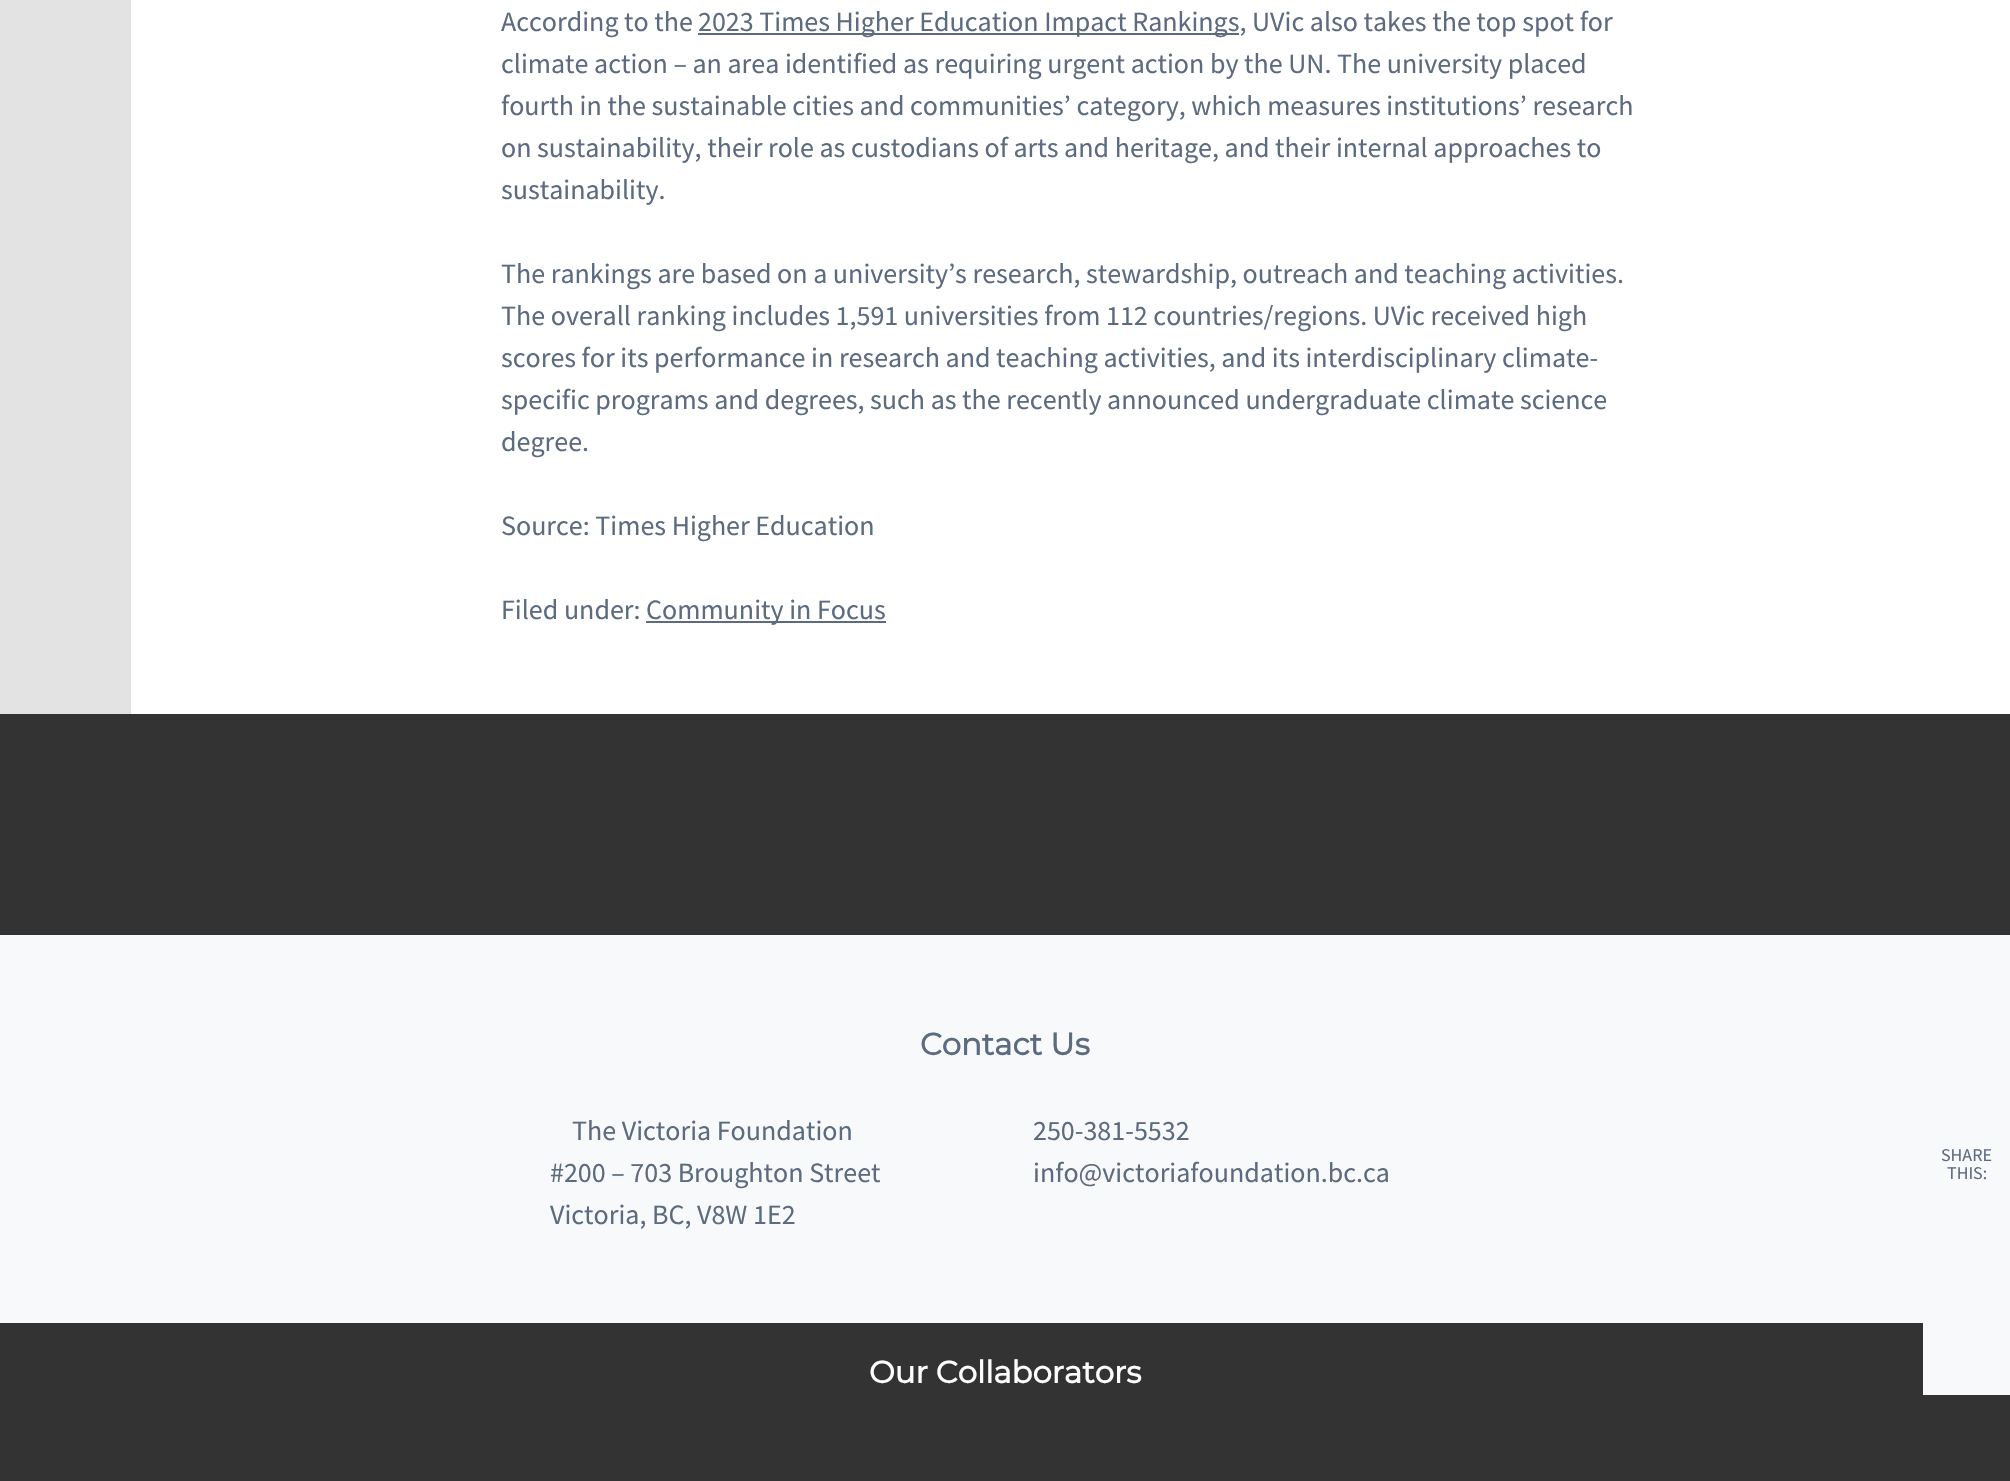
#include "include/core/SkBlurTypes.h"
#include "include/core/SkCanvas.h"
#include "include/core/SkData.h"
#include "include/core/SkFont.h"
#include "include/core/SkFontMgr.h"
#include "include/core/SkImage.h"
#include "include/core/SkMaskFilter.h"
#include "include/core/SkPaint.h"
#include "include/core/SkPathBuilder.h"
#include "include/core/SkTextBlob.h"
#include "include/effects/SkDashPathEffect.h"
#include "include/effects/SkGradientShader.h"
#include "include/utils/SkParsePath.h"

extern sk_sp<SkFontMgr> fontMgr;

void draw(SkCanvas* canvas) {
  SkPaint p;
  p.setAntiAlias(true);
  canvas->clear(SkColorSetRGB(51, 51, 51));
  p.setColor(SK_ColorWHITE);
  canvas->drawRect(SkRect::MakeLTRB(131, 0, 2010, 714), p);
  p.setColor(SkColorSetRGB(227, 227, 227));
  canvas->drawRect(SkRect::MakeLTRB(0, 0, 131, 714), p);
  p.setColor(SkColorSetRGB(92, 107, 128));
  canvas->drawRect(SkRect::MakeLTRB(698, 33, 1239, 35), p);
  canvas->drawRect(SkRect::MakeLTRB(646, 621, 886, 623), p);
  p.setColor(SkColorSetRGB(248, 249, 250));
  canvas->drawRect(SkRect::MakeLTRB(0, 935, 2010, 1323), p);
  canvas->drawRect(SkRect::MakeLTRB(1923, 1323, 2010, 1395), p);
  SkFont font1(fontMgr->matchFamilyStyle("Source Sans Pro", SkFontStyle::Normal()), 28);
  font1.setSubpixel(true);
  p.setColor(SkColorSetRGB(92, 107, 128));
  canvas->drawString("According to the", 501, 31, font1, p);
  canvas->drawString("2023 Times Higher Education Impact Rankings, UVic also takes the top spot for", 698, 31, font1, p);
  canvas->drawString("climate action – an area identified as requiring urgent action by the UN. The university placed", 501, 73, font1, p);
  canvas->drawString("fourth in the sustainable cities and communities’ category, which measures institutions’ research", 501, 115, font1, p);
  canvas->drawString("on sustainability, their role as custodians of arts and heritage, and their internal approaches to", 501, 157, font1, p);
  canvas->drawString("sustainability.", 501, 199, font1, p);
  canvas->drawString("The rankings are based on a university’s research, stewardship, outreach and teaching activities.", 501, 283, font1, p);
  canvas->drawString("The overall ranking includes 1,591 universities from 112 countries/regions. UVic received high", 501, 325, font1, p);
  canvas->drawString("scores for its performance in research and teaching activities, and its interdisciplinary climate-", 501, 367, font1, p);
  canvas->drawString("specific programs and degrees, such as the recently announced undergraduate climate science", 501, 409, font1, p);
  canvas->drawString("degree.", 501, 451, font1, p);
  canvas->drawString("Source: Times Higher Education", 501, 535, font1, p);
  canvas->drawString("Filed under:", 501, 619, font1, p);
  canvas->drawString("Community in Focus", 646, 619, font1, p);
  SkFont font2(fontMgr->matchFamilyStyle("Montserrat", SkFontStyle::Bold()), 30.75f);
  font2.setSubpixel(true);
  canvas->drawString("Contact Us", 920, 1055, font2, p);
  canvas->drawString("The Victoria Foundation", 572, 1140, font1, p);
  canvas->drawString("#200 – 703 Broughton Street", 550, 1182, font1, p);
  canvas->drawString("Victoria, BC, V8W 1E2", 550, 1224, font1, p);
  canvas->drawString("250-381-5532", 1033, 1140, font1, p);
  canvas->drawString("info@victoriafoundation.bc.ca", 1033, 1182, font1, p);
  SkFont font3(fontMgr->matchFamilyStyle("Source Sans Pro", SkFontStyle::Normal()), 18);
  font3.setSubpixel(true);
  canvas->drawString("SHARE", 1941, 1161, font3, p);
  canvas->drawString("THIS:", 1947, 1179, font3, p);
  p.setColor(SK_ColorWHITE);
  canvas->drawString("Our Collaborators", 869, 1383, font2, p);
}
